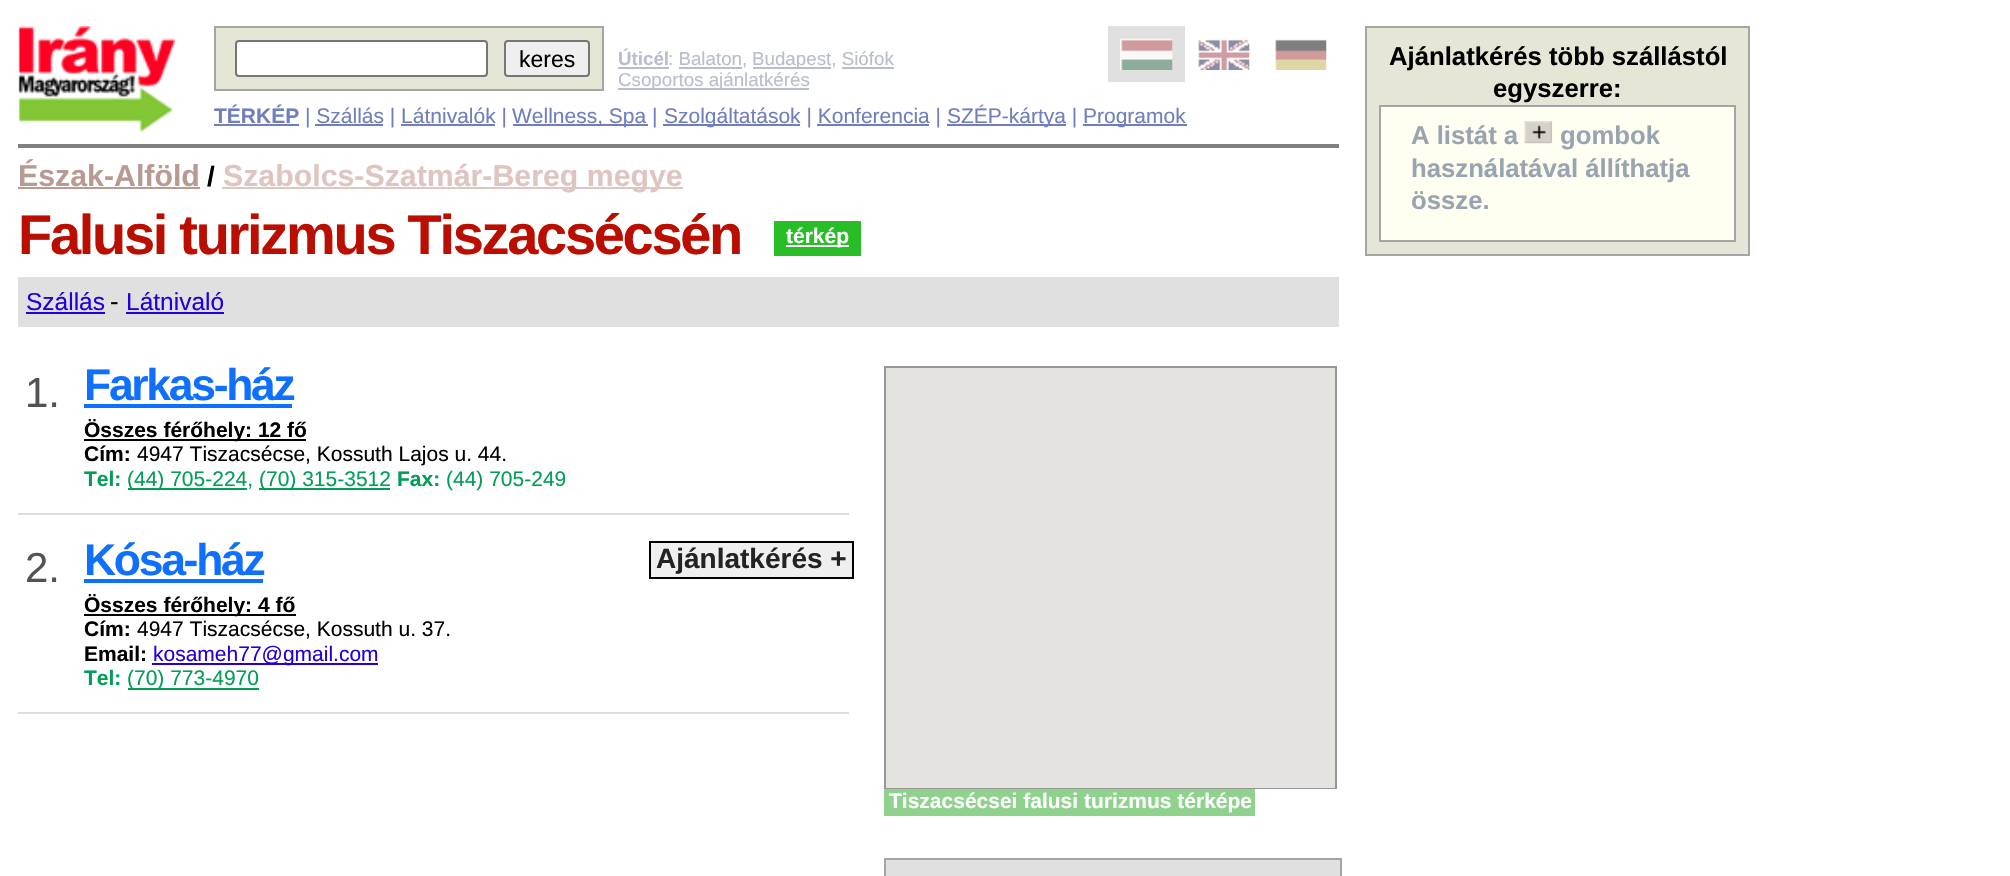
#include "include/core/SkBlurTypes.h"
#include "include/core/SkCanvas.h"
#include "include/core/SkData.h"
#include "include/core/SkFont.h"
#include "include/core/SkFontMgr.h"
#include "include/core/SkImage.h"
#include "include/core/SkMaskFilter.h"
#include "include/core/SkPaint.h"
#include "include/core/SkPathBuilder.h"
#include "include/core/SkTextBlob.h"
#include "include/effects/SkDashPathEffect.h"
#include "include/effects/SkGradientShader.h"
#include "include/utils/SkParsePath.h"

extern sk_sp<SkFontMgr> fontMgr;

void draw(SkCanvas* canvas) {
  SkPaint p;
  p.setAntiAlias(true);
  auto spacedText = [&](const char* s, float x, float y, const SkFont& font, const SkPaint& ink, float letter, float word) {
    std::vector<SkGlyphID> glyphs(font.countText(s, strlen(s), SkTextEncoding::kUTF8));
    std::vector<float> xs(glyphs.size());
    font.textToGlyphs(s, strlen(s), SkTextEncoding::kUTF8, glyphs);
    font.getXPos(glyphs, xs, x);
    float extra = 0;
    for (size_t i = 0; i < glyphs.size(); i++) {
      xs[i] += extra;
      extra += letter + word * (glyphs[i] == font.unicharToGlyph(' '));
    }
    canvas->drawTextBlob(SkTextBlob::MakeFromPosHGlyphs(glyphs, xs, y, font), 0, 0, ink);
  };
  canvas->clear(SK_ColorWHITE);
  canvas->drawImageRect(SkImages::DeferredFromEncodedData(SkData::MakeFromFileName("images/1.png")), SkRect::MakeLTRB(18, 26, 175, 132), SkSamplingOptions());
  p.setColor(SkColorSetRGB(230, 230, 214));
  canvas->drawRect(SkRect::MakeLTRB(215, 27, 603, 90), p);
  p.setStyle(SkPaint::kStroke_Style);
  p.setStrokeWidth(2);
  p.setColor(SkColorSetRGB(165, 165, 165));
  canvas->drawRect(SkRect::MakeLTRB(215, 27, 603, 90), p);
  p.setStyle(SkPaint::kFill_Style);
  p.setColor(SK_ColorWHITE);
  canvas->drawRoundRect(SkRect::MakeLTRB(236, 41, 487, 76), 3, 3, p);
  p.setStyle(SkPaint::kStroke_Style);
  p.setColor(SkColorSetRGB(118, 118, 118));
  canvas->drawRoundRect(SkRect::MakeLTRB(236, 41, 487, 76), 3, 3, p);
  p.setStyle(SkPaint::kFill_Style);
  p.setColor(SkColorSetRGB(239, 239, 239));
  canvas->drawRoundRect(SkRect::MakeLTRB(505, 41, 589, 76), 3, 3, p);
  p.setStyle(SkPaint::kStroke_Style);
  p.setColor(SkColorSetRGB(118, 118, 118));
  canvas->drawRoundRect(SkRect::MakeLTRB(505, 41, 589, 76), 3, 3, p);
  p.setStyle(SkPaint::kFill_Style);
  p.setColor(SkColorSetRGB(183, 189, 206));
  canvas->drawRect(SkRect::MakeLTRB(618, 67, 669, 69), p);
  canvas->drawRect(SkRect::MakeLTRB(679, 67, 742, 69), p);
  canvas->drawRect(SkRect::MakeLTRB(753, 67, 831, 69), p);
  canvas->drawRect(SkRect::MakeLTRB(842, 67, 894, 69), p);
  canvas->drawRect(SkRect::MakeLTRB(618, 88, 809, 90), p);
  p.setColor(SkColorSetRGB(224, 224, 224));
  canvas->drawRect(SkRect::MakeLTRB(1108, 26, 1185, 82), p);
  canvas->drawImageRect(SkImages::DeferredFromEncodedData(SkData::MakeFromFileName("images/2.png")), SkRect::MakeLTRB(1120, 38, 1173, 70), SkSamplingOptions());
  canvas->drawImageRect(SkImages::DeferredFromEncodedData(SkData::MakeFromFileName("images/3.png")), SkRect::MakeLTRB(1198, 39, 1250, 70), SkSamplingOptions());
  canvas->drawImageRect(SkImages::DeferredFromEncodedData(SkData::MakeFromFileName("images/4.png")), SkRect::MakeLTRB(1275, 39, 1327, 70), SkSamplingOptions());
  p.setColor(SkColorSetRGB(112, 126, 189));
  canvas->drawRect(SkRect::MakeLTRB(214, 124, 299, 126), p);
  canvas->drawRect(SkRect::MakeLTRB(315, 124, 383, 126), p);
  canvas->drawRect(SkRect::MakeLTRB(401, 124, 495, 126), p);
  canvas->drawRect(SkRect::MakeLTRB(513, 124, 648, 126), p);
  canvas->drawRect(SkRect::MakeLTRB(663, 124, 800, 126), p);
  canvas->drawRect(SkRect::MakeLTRB(817, 124, 929, 126), p);
  canvas->drawRect(SkRect::MakeLTRB(947, 124, 1066, 126), p);
  canvas->drawRect(SkRect::MakeLTRB(1083, 124, 1187, 126), p);
  p.setColor(SkColorSetRGB(128, 128, 128));
  canvas->drawRect(SkRect::MakeLTRB(18, 144, 1339, 148), p);
  p.setColor(SkColorSetRGB(185, 154, 146));
  canvas->drawRect(SkRect::MakeLTRB(18, 187, 200, 189), p);
  p.setColor(SkColorSetRGB(223, 197, 191));
  canvas->drawRect(SkRect::MakeLTRB(222, 187, 683, 189), p);
  p.setColor(SkColorSetRGB(41, 189, 40));
  canvas->drawRect(SkRect::MakeLTRB(774, 221, 861, 256), p);
  p.setColor(SK_ColorWHITE);
  canvas->drawRect(SkRect::MakeLTRB(786, 245, 849, 247), p);
  p.setColor(SkColorSetRGB(224, 224, 224));
  canvas->drawRect(SkRect::MakeLTRB(18, 277, 1339, 327), p);
  p.setColor(SkColorSetRGB(34, 0, 221));
  canvas->drawRect(SkRect::MakeLTRB(26, 312, 105, 314), p);
  canvas->drawRect(SkRect::MakeLTRB(126, 312, 224, 314), p);
  p.setColor(SkColorSetRGB(15, 111, 255));
  canvas->drawRect(SkRect::MakeLTRB(84, 404, 292, 408), p);
  p.setColor(SK_ColorBLACK);
  canvas->drawRect(SkRect::MakeLTRB(84, 439, 306, 441), p);
  p.setColor(SkColorSetRGB(0, 158, 86));
  canvas->drawRect(SkRect::MakeLTRB(128, 488, 247, 490), p);
  canvas->drawRect(SkRect::MakeLTRB(259, 488, 390, 490), p);
  p.setColor(SkColorSetRGB(221, 221, 221));
  canvas->drawRect(SkRect::MakeLTRB(18, 513, 849, 515), p);
  p.setColor(SkColorSetRGB(15, 111, 255));
  canvas->drawRect(SkRect::MakeLTRB(84, 579, 263, 583), p);
  p.setColor(SkColorSetRGB(239, 239, 239));
  canvas->drawRect(SkRect::MakeLTRB(650, 542, 853, 578), p);
  p.setStyle(SkPaint::kStroke_Style);
  p.setColor(SK_ColorBLACK);
  canvas->drawRect(SkRect::MakeLTRB(650, 542, 853, 578), p);
  p.setStyle(SkPaint::kFill_Style);
  canvas->drawRect(SkRect::MakeLTRB(84, 614, 296, 616), p);
  p.setColor(SkColorSetRGB(34, 0, 221));
  canvas->drawRect(SkRect::MakeLTRB(152, 663, 378, 665), p);
  p.setColor(SkColorSetRGB(0, 158, 86));
  canvas->drawRect(SkRect::MakeLTRB(128, 688, 259, 690), p);
  p.setColor(SkColorSetRGB(221, 221, 221));
  canvas->drawRect(SkRect::MakeLTRB(18, 712, 849, 714), p);
  p.setStyle(SkPaint::kStroke_Style);
  p.setColor(SkColorSetRGB(151, 151, 151));
  canvas->drawRect(SkRect::MakeLTRB(885, 367, 1336, 788), p);
  p.setStyle(SkPaint::kFill_Style);
  p.setColor(SkColorSetRGB(229, 227, 223));
  canvas->drawRect(SkRect::MakeLTRB(886, 368, 1335, 788), p);
  p.setColor(SkColorSetRGB(142, 210, 142));
  canvas->drawRect(SkRect::MakeLTRB(884, 789, 1255, 816), p);
  p.setColor(SkColorSetRGB(224, 224, 224));
  canvas->drawRect(SkRect::MakeLTRB(885, 859, 1341, 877), p);
  p.setStyle(SkPaint::kStroke_Style);
  p.setColor(SkColorSetRGB(165, 165, 165));
  canvas->drawRect(SkRect::MakeLTRB(885, 859, 1341, 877), p);
  p.setStyle(SkPaint::kFill_Style);
  canvas->drawRect(SkRect::MakeLTRB(1365, 26, 1750, 256), p);
  p.setColor(SkColorSetRGB(230, 230, 214));
  canvas->drawRect(SkRect::MakeLTRB(1367, 28, 1748, 254), p);
  p.setColor(SkColorSetRGB(165, 165, 165));
  canvas->drawRect(SkRect::MakeLTRB(1379, 105, 1736, 242), p);
  p.setColor(SkColorSetRGB(255, 255, 241));
  canvas->drawRect(SkRect::MakeLTRB(1381, 107, 1734, 240), p);
  canvas->drawImageRect(SkImages::DeferredFromEncodedData(SkData::MakeFromFileName("images/5.png")), SkRect::MakeLTRB(1524, 121, 1553, 144), SkSamplingOptions());
  SkFont font1(fontMgr->matchFamilyStyle("Liberation Sans", SkFontStyle::Normal()), 23);
  font1.setSubpixel(true);
  p.setColor(SK_ColorBLACK);
  canvas->drawString("keres", 519, 67, font1, p);
  SkFont font2(fontMgr->matchFamilyStyle("Liberation Sans", SkFontStyle::Bold()), 18.75f);
  font2.setSubpixel(true);
  p.setColor(SkColorSetRGB(183, 189, 206));
  canvas->drawString("Úticél", 618, 65, font2, p);
  SkFont font3(fontMgr->matchFamilyStyle("Liberation Sans", SkFontStyle::Normal()), 18.75f);
  font3.setSubpixel(true);
  canvas->drawString(": Balaton,", 668, 65, font3, p);
  canvas->drawString("Budapest, Siófok", 752, 65, font3, p);
  canvas->drawString("Csoportos ajánlatkérés", 618, 86, font3, p);
  SkFont font4(fontMgr->matchFamilyStyle("Liberation Sans", SkFontStyle::Bold()), 21);
  font4.setSubpixel(true);
  p.setColor(SkColorSetRGB(112, 126, 189));
  canvas->drawString("TÉRKÉP", 214, 123, font4, p);
  SkFont font5(fontMgr->matchFamilyStyle("Liberation Sans", SkFontStyle::Normal()), 21);
  font5.setSubpixel(true);
  canvas->drawString("| Szállás | Látnivalók |", 305, 123, font5, p);
  canvas->drawString("Wellness, Spa |", 512, 123, font5, p);
  canvas->drawString("Szolgáltatások | Konferencia |", 664, 123, font5, p);
  canvas->drawString("SZÉP-kártya |", 947, 123, font5, p);
  canvas->drawString("Programok", 1083, 123, font5, p);
  SkFont font6(fontMgr->matchFamilyStyle("Liberation Sans", SkFontStyle::Bold()), 30.3f);
  font6.setSubpixel(true);
  p.setColor(SkColorSetRGB(185, 154, 146));
  canvas->drawString("Észak-Alföld", 18, 186, font6, p);
  SkFont font7(fontMgr->matchFamilyStyle("Liberation Sans", SkFontStyle::Bold()), 28);
  font7.setSubpixel(true);
  p.setColor(SK_ColorBLACK);
  canvas->drawString("/", 207, 186, font7, p);
  p.setColor(SkColorSetRGB(223, 197, 191));
  canvas->drawString("Szabolcs-Szatmár-Bereg megye", 223, 186, font6, p);
  SkFont font8(fontMgr->matchFamilyStyle("Liberation Sans", SkFontStyle::Bold()), 56);
  font8.setSubpixel(true);
  p.setColor(SkColorSetRGB(185, 14, 0));
  spacedText("Falusi turizmus Tiszacsécsén", 18, 254, font8, p, -2.3f, 0);
  p.setColor(SK_ColorWHITE);
  canvas->drawString("térkép", 786, 243, font4, p);
  SkFont font9(fontMgr->matchFamilyStyle("Liberation Sans", SkFontStyle::Normal()), 24.5f);
  font9.setSubpixel(true);
  p.setColor(SkColorSetRGB(34, 0, 221));
  canvas->drawString("Szállás", 26, 310, font9, p);
  SkFont font10(fontMgr->matchFamilyStyle("Liberation Sans", SkFontStyle::Normal()), 25.7f);
  font10.setSubpixel(true);
  p.setColor(SK_ColorBLACK);
  canvas->drawString("-", 110, 310, font10, p);
  p.setColor(SkColorSetRGB(34, 0, 221));
  canvas->drawString("Látnivaló", 126, 310, font9, p);
  SkFont font11(fontMgr->matchFamilyStyle("Liberation Sans", SkFontStyle::Normal()), 42);
  font11.setSubpixel(true);
  p.setColor(SkColorSetRGB(83, 83, 83));
  canvas->drawString("1.", 25, 407, font11, p);
  SkFont font12(fontMgr->matchFamilyStyle("Liberation Sans", SkFontStyle::Bold()), 44.5f);
  font12.setSubpixel(true);
  p.setColor(SkColorSetRGB(15, 111, 255));
  spacedText("Farkas-ház", 84, 400, font12, p, -2.3f, 0);
  p.setColor(SK_ColorBLACK);
  canvas->drawString("Összes férőhely: 12 fő", 84, 437, font4, p);
  canvas->drawString("Cím:", 84, 461, font4, p);
  canvas->drawString("4947 Tiszacsécse, Kossuth Lajos u. 44.", 137, 461, font5, p);
  p.setColor(SkColorSetRGB(0, 158, 86));
  canvas->drawString("Tel:", 84, 486, font4, p);
  canvas->drawString("(44) 705-224,", 127, 486, font5, p);
  canvas->drawString("(70) 315-3512", 259, 486, font5, p);
  canvas->drawString("Fax:", 397, 486, font4, p);
  canvas->drawString("(44) 705-249", 446, 486, font5, p);
  p.setColor(SkColorSetRGB(83, 83, 83));
  canvas->drawString("2.", 25, 582, font11, p);
  p.setColor(SkColorSetRGB(15, 111, 255));
  spacedText("Kósa-ház", 84, 575, font12, p, -2.3f, 0);
  p.setColor(SkColorSetRGB(35, 35, 35));
  canvas->drawString("Ajánlatkérés +", 656, 568, font7, p);
  p.setColor(SK_ColorBLACK);
  canvas->drawString("Összes férőhely: 4 fő", 84, 612, font4, p);
  canvas->drawString("Cím:", 84, 636, font4, p);
  canvas->drawString("4947 Tiszacsécse, Kossuth u. 37.", 137, 636, font5, p);
  canvas->drawString("Email:", 84, 661, font4, p);
  p.setColor(SkColorSetRGB(34, 0, 221));
  canvas->drawString("kosameh77@gmail.com", 153, 661, font5, p);
  p.setColor(SkColorSetRGB(0, 158, 86));
  canvas->drawString("Tel:", 84, 685, font4, p);
  canvas->drawString("(70) 773-4970", 127, 685, font5, p);
  p.setColor(SK_ColorWHITE);
  canvas->drawString("Tiszacsécsei falusi turizmus térképe", 889, 808, font4, p);
  SkFont font13(fontMgr->matchFamilyStyle("Liberation Sans", SkFontStyle::Bold()), 25.7f);
  font13.setSubpixel(true);
  p.setColor(SK_ColorBLACK);
  canvas->drawString("Ajánlatkérés több szállástól", 1389, 65, font13, p);
  canvas->drawString("egyszerre:", 1493, 97, font13, p);
  p.setColor(SkColorSetRGB(153, 164, 177));
  canvas->drawString("A listát a", 1411, 144, font13, p);
  canvas->drawString("gombok", 1560, 144, font13, p);
  canvas->drawString("használatával állíthatja", 1411, 177, font13, p);
  canvas->drawString("össze.", 1411, 209, font13, p);
}
